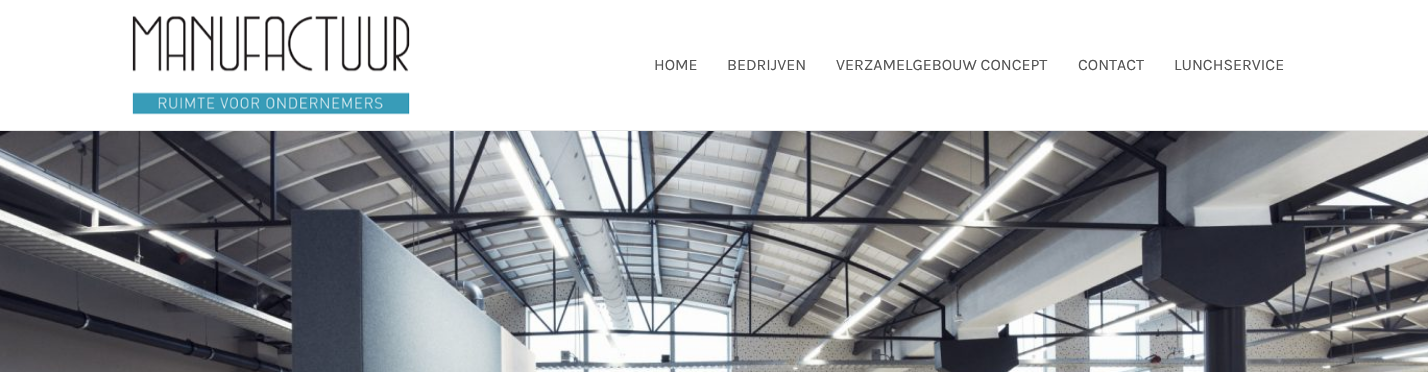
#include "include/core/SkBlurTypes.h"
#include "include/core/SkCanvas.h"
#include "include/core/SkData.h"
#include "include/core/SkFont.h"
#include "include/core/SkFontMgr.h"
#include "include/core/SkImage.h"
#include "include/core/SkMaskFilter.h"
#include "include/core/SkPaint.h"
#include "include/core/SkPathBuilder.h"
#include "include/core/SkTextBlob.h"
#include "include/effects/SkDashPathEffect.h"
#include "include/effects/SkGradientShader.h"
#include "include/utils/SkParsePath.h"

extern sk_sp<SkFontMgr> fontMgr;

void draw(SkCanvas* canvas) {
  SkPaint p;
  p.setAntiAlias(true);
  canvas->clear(SK_ColorWHITE);
  p.setColor(SkColorSetRGB(231, 231, 231));
  canvas->drawRect(SkRect::MakeLTRB(0, 130, 1428, 131), p);
  canvas->drawImageRect(SkImages::DeferredFromEncodedData(SkData::MakeFromFileName("images/1.png")), SkRect::MakeLTRB(132, 15, 410, 115), SkSamplingOptions());
  canvas->drawImageRect(SkImages::DeferredFromEncodedData(SkData::MakeFromFileName("images/2.png")), SkRect::MakeLTRB(0, 131, 1428, 372), SkSamplingOptions());
  SkFont font1(fontMgr->matchFamilyStyle("Karla", SkFontStyle::Normal()), 16);
  font1.setSubpixel(true);
  p.setColor(SkColorSetRGB(85, 85, 85));
  canvas->drawString("HOME", 654, 70, font1, p);
  canvas->drawString("BEDRIJVEN", 727, 70, font1, p);
  canvas->drawString("VERZAMELGEBOUW CONCEPT", 836, 70, font1, p);
  canvas->drawString("CONTACT", 1078, 70, font1, p);
  canvas->drawString("LUNCHSERVICE", 1174, 70, font1, p);
}
